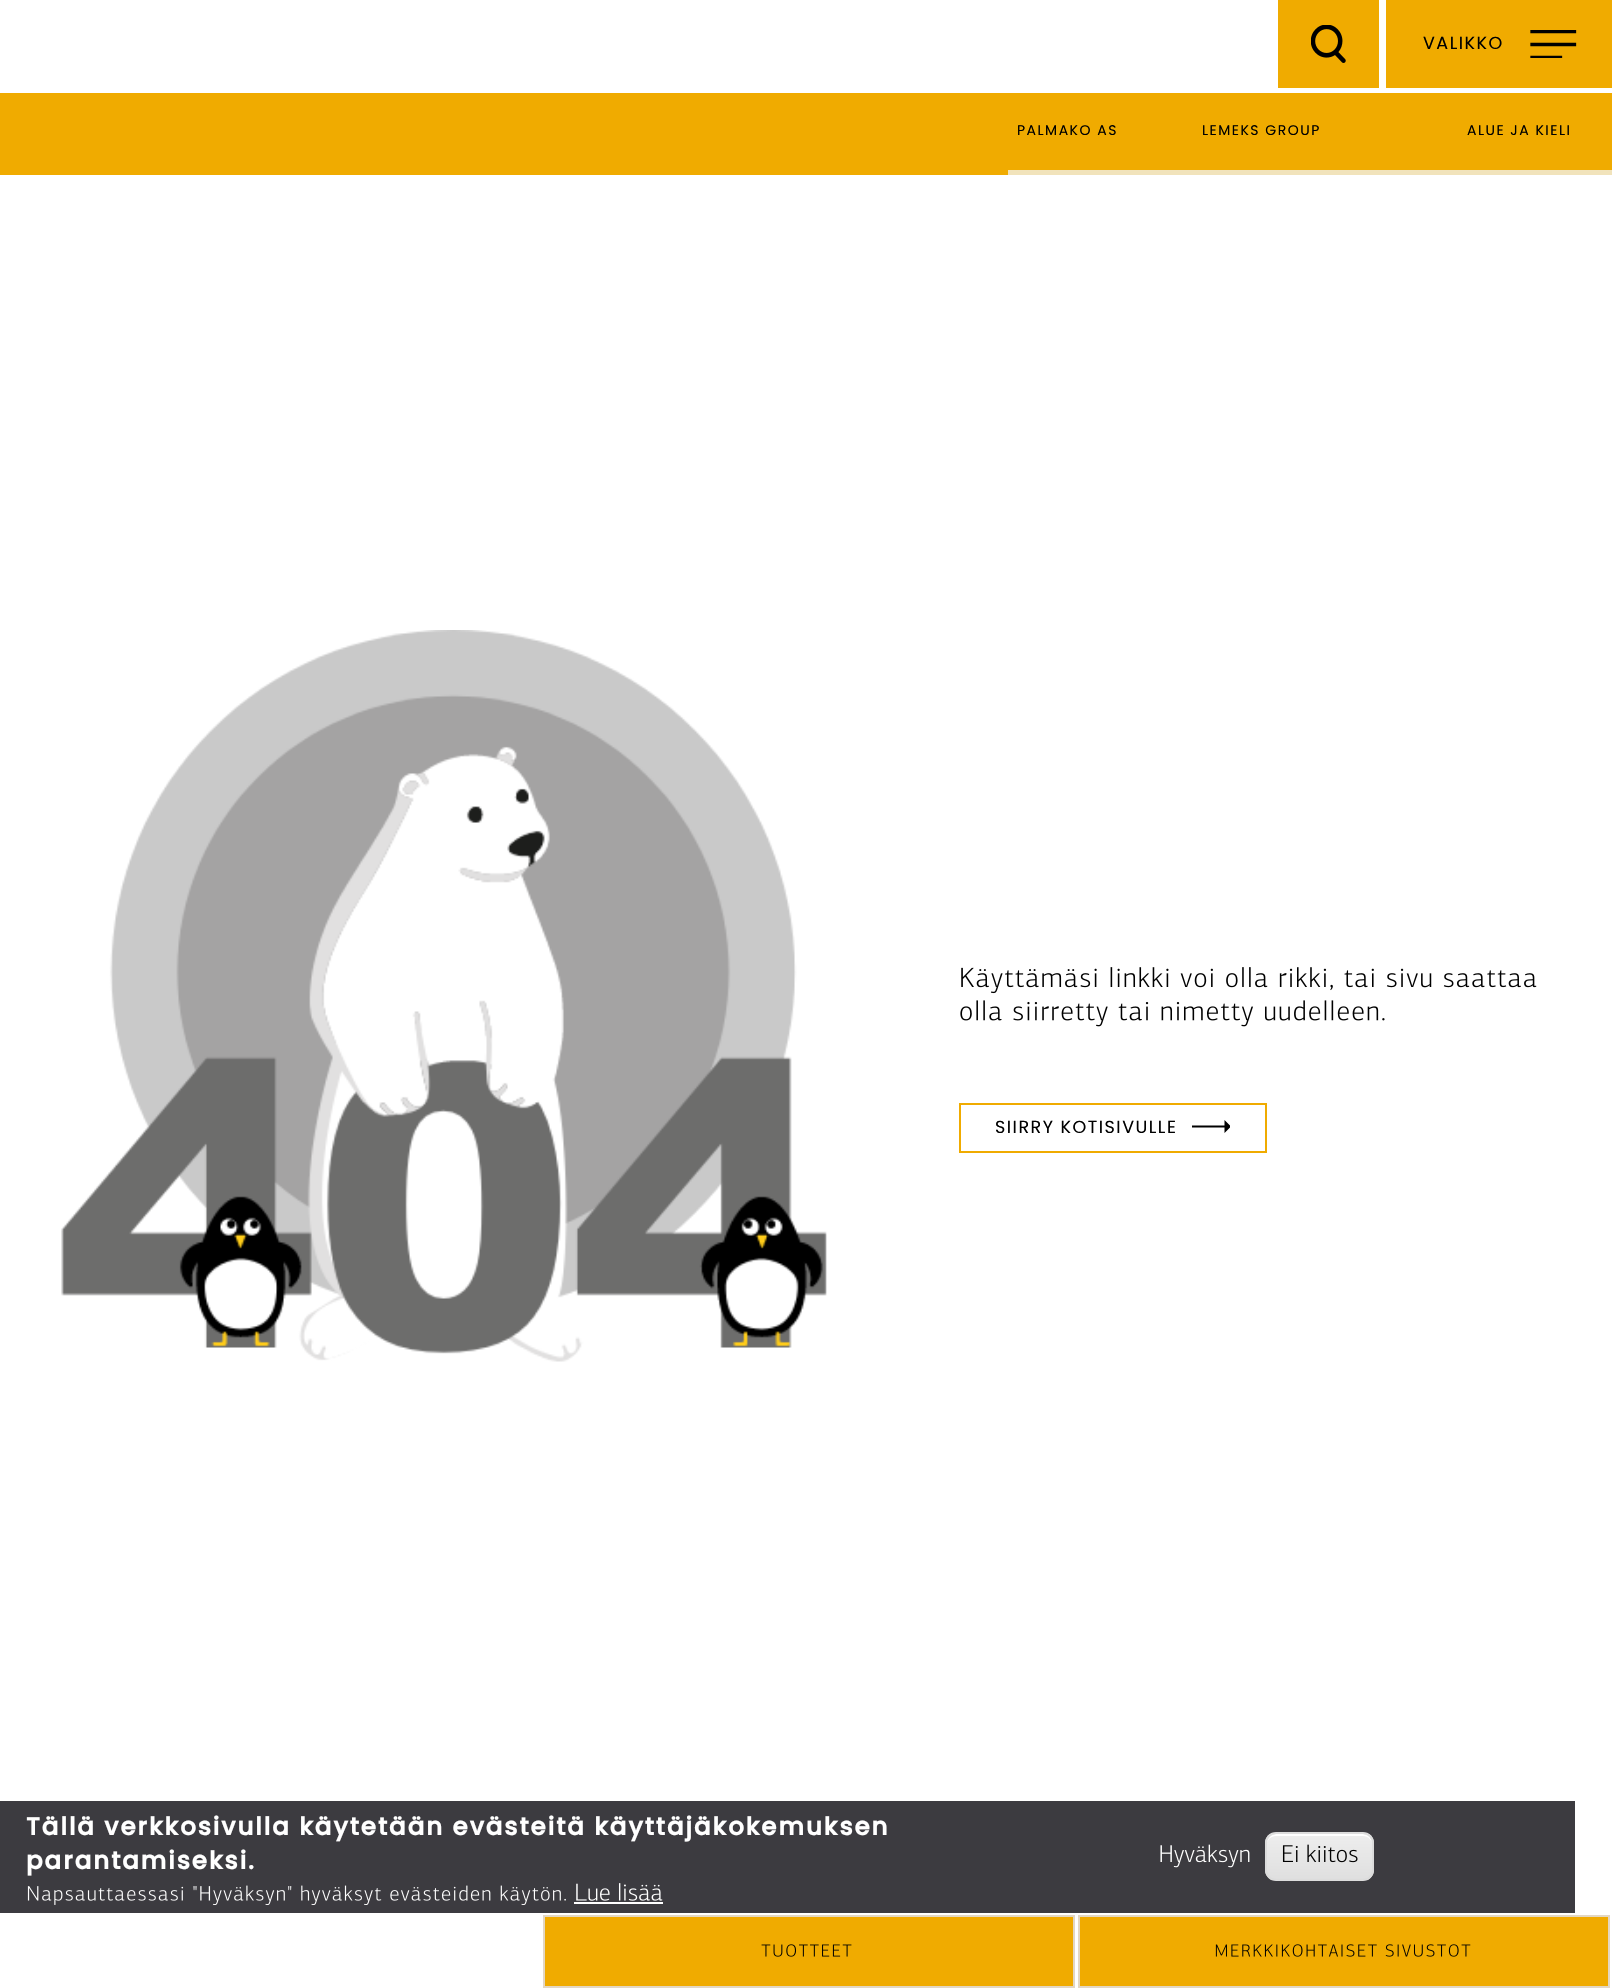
#include "include/core/SkBlurTypes.h"
#include "include/core/SkCanvas.h"
#include "include/core/SkData.h"
#include "include/core/SkFont.h"
#include "include/core/SkFontMgr.h"
#include "include/core/SkImage.h"
#include "include/core/SkMaskFilter.h"
#include "include/core/SkPaint.h"
#include "include/core/SkPathBuilder.h"
#include "include/core/SkTextBlob.h"
#include "include/effects/SkDashPathEffect.h"
#include "include/effects/SkGradientShader.h"
#include "include/utils/SkParsePath.h"

extern sk_sp<SkFontMgr> fontMgr;

void draw(SkCanvas* canvas) {
  SkPaint p;
  p.setAntiAlias(true);
  auto spacedText = [&](const char* s, float x, float y, const SkFont& font, const SkPaint& ink, float letter, float word) {
    std::vector<SkGlyphID> glyphs(font.countText(s, strlen(s), SkTextEncoding::kUTF8));
    std::vector<float> xs(glyphs.size());
    font.textToGlyphs(s, strlen(s), SkTextEncoding::kUTF8, glyphs);
    font.getXPos(glyphs, xs, x);
    float extra = 0;
    for (size_t i = 0; i < glyphs.size(); i++) {
      xs[i] += extra;
      extra += letter + word * (glyphs[i] == font.unicharToGlyph(' '));
    }
    canvas->drawTextBlob(SkTextBlob::MakeFromPosHGlyphs(glyphs, xs, y, font), 0, 0, ink);
  };
  canvas->clear(SK_ColorWHITE);
  p.setColor(SkColorSetRGB(240, 171, 0));
  canvas->drawRect(SkRect::MakeLTRB(1278, 0, 1379, 88), p);
  canvas->drawImageRect(SkImages::DeferredFromEncodedData(SkData::MakeFromFileName("images/1.png")), SkRect::MakeLTRB(1311, 25, 1346, 63), SkSamplingOptions());
  canvas->drawRect(SkRect::MakeLTRB(1386, 0, 1612, 88), p);
  canvas->save();
  canvas->clipRect(SkRect::MakeLTRB(1530, 30, 1577, 58));
  p.setStyle(SkPaint::kStroke_Style);
  p.setStrokeWidth(3.3f);
  p.setStrokeCap(SkPaint::kSquare_Cap);
  p.setColor(SK_ColorBLACK);
  canvas->drawPath(SkPathBuilder().moveTo(1532, 31.5f).lineTo(1574.5f, 31.5f).moveTo(1532, 44.5f).lineTo(1574.5f, 44.5f).moveTo(1532, 57.5f).lineTo(1560.5f, 57.5f).detach(), p);
  canvas->restore();
  p.setStyle(SkPaint::kFill_Style);
  p.setColor(SkColorSetRGB(240, 171, 0));
  canvas->drawRect(SkRect::MakeLTRB(0, 93, 1612, 175), p);
  p.setColor(SkColorSetRGB(241, 227, 187));
  canvas->drawRect(SkRect::MakeLTRB(1008, 170, 1612, 175), p);
  canvas->drawImageRect(SkImages::DeferredFromEncodedData(SkData::MakeFromFileName("images/2.png")), SkRect::MakeLTRB(61, 630, 827, 1362), SkSamplingOptions());
  canvas->drawImageRect(SkImages::DeferredFromEncodedData(SkData::MakeFromFileName("images/3.png")), SkRect::MakeLTRB(961, 967, 1537, 994), SkSamplingOptions());
  canvas->drawImageRect(SkImages::DeferredFromEncodedData(SkData::MakeFromFileName("images/4.png")), SkRect::MakeLTRB(960, 1000, 1385, 1027), SkSamplingOptions());
  p.setStyle(SkPaint::kStroke_Style);
  p.setStrokeWidth(2);
  p.setStrokeCap(SkPaint::kButt_Cap);
  p.setColor(SkColorSetRGB(240, 171, 0));
  canvas->drawRect(SkRect::MakeLTRB(960, 1104, 1266, 1152), p);
  canvas->save();
  canvas->clipRect(SkRect::MakeLTRB(1192, 1120, 1230, 1134));
  p.setStyle(SkPaint::kFill_Style);
  p.setColor(SK_ColorBLACK);
  canvas->drawPath(SkPathBuilder().moveTo(1224.5f, 1120).lineTo(1224.5f, 1125.5f).lineTo(1192, 1125.5f).lineTo(1192, 1127.5f).lineTo(1224.5f, 1127.5f).lineTo(1224.5f, 1133).lineTo(1231, 1126.5f).close().detach(), p);
  canvas->restore();
  p.setColor(SkColorSetRGB(240, 171, 0));
  canvas->drawRect(SkRect::MakeLTRB(544, 1916, 1074, 1987), p);
  p.setStyle(SkPaint::kStroke_Style);
  p.setColor(SkColorSetRGB(227, 215, 195));
  canvas->drawRect(SkRect::MakeLTRB(544, 1916, 1074, 1987), p);
  canvas->drawImageRect(SkImages::DeferredFromEncodedData(SkData::MakeFromFileName("images/5.png")), SkRect::MakeLTRB(761, 1944, 852, 1957), SkSamplingOptions());
  p.setStyle(SkPaint::kFill_Style);
  p.setColor(SkColorSetRGB(240, 171, 0));
  canvas->drawRect(SkRect::MakeLTRB(1079, 1916, 1609, 1987), p);
  p.setStyle(SkPaint::kStroke_Style);
  p.setColor(SkColorSetRGB(227, 215, 195));
  canvas->drawRect(SkRect::MakeLTRB(1079, 1916, 1609, 1987), p);
  canvas->drawImageRect(SkImages::DeferredFromEncodedData(SkData::MakeFromFileName("images/6.png")), SkRect::MakeLTRB(1215, 1944, 1471, 1957), SkSamplingOptions());
  p.setStyle(SkPaint::kFill_Style);
  p.setColor(SkColorSetRGB(60, 59, 64));
  canvas->drawRect(SkRect::MakeLTRB(0, 1801, 1575, 1913), p);
  canvas->drawImageRect(SkImages::DeferredFromEncodedData(SkData::MakeFromFileName("images/7.png")), SkRect::MakeLTRB(27, 1885, 566, 1905), SkSamplingOptions());
  canvas->drawImageRect(SkImages::DeferredFromEncodedData(SkData::MakeFromFileName("images/8.png")), SkRect::MakeLTRB(576, 1883, 663, 1901), SkSamplingOptions());
  p.setColor(SK_ColorWHITE);
  canvas->drawRect(SkRect::MakeLTRB(574, 1902, 663, 1904), p);
  canvas->drawImageRect(SkImages::DeferredFromEncodedData(SkData::MakeFromFileName("images/9.png")), SkRect::MakeLTRB(1160, 1844, 1250, 1868), SkSamplingOptions());
  canvas->save();
  canvas->clipPath(SkPathBuilder().moveTo(1276, 1832).lineTo(1363, 1832).cubicTo(1369, 1832, 1374, 1837, 1374, 1843).lineTo(1374, 1870).cubicTo(1374, 1876, 1369, 1881, 1363, 1881).lineTo(1276, 1881).cubicTo(1270, 1881, 1265, 1876, 1265, 1870).lineTo(1265, 1843).cubicTo(1265, 1837, 1270, 1832, 1276, 1832).close().detach(), true);
  {
    const SkColor colors[] = {SkColorSetRGB(237, 237, 237), SkColorSetRGB(223, 223, 223)};
    const float stops[] = {0.05f, 1};
    const SkPoint ends[] = {{1320, 1834}, {1320, 1880}};
    p.setShader(SkGradientShader::MakeLinear(ends, colors, stops, 2, SkTileMode::kClamp));
    p.setAlpha(255);
  }
  canvas->drawRect(SkRect::MakeLTRB(1265, 1834, 1374, 1880), p);
  canvas->restore();
  p.setShader(nullptr);
  p.setColor(SK_ColorWHITE);
  canvas->drawPath(SkPathBuilder().moveTo(1276, 1836).lineTo(1363, 1836).cubicTo(1368, 1836, 1372, 1840, 1372, 1844).cubicTo(1372, 1831, 1357, 1834, 1348, 1834).lineTo(1290, 1834).cubicTo(1282, 1834, 1267, 1831, 1267, 1844).cubicTo(1267, 1840, 1271, 1836, 1276, 1836).close().detach(), p);
  p.setStyle(SkPaint::kStroke_Style);
  p.setColor(SkColorSetRGB(220, 220, 220));
  canvas->drawRoundRect(SkRect::MakeLTRB(1266, 1833, 1373, 1880), 10, 10, p);
  canvas->drawImageRect(SkImages::DeferredFromEncodedData(SkData::MakeFromFileName("images/10.png")), SkRect::MakeLTRB(1282, 1844, 1358, 1863), SkSamplingOptions());
  SkFont font1(fontMgr->matchFamilyStyle("Poppins", SkFontStyle::Normal()), 17.5f);
  font1.setSubpixel(true);
  p.setStyle(SkPaint::kFill_Style);
  p.setColor(SK_ColorBLACK);
  spacedText("VALIKKO", 1423, 49, font1, p, 1.5f, 0);
  SkFont font2(fontMgr->matchFamilyStyle("Poppins", SkFontStyle::Normal()), 14);
  font2.setSubpixel(true);
  spacedText("PALMAKO AS", 1017, 135, font2, p, 1.5f, 0);
  spacedText("LEMEKS GROUP", 1202, 135, font2, p, 1.5f, 0);
  spacedText("ALUE JA KIELI", 1467, 135, font2, p, 1.5f, 0);
  spacedText("SIIRRY KOTISIVULLE", 995, 1133, font1, p, 1.5f, 0);
  SkFont font3(fontMgr->matchFamilyStyle("Poppins", SkFontStyle::Bold()), 24.5f);
  font3.setSubpixel(true);
  p.setColor(SK_ColorWHITE);
  spacedText("Tällä verkkosivulla käytetään evästeitä käyttäjäkokemuksen", 26, 1835, font3, p, 2, 0);
  spacedText("parantamiseksi.", 26, 1869, font3, p, 2, 0);
}
